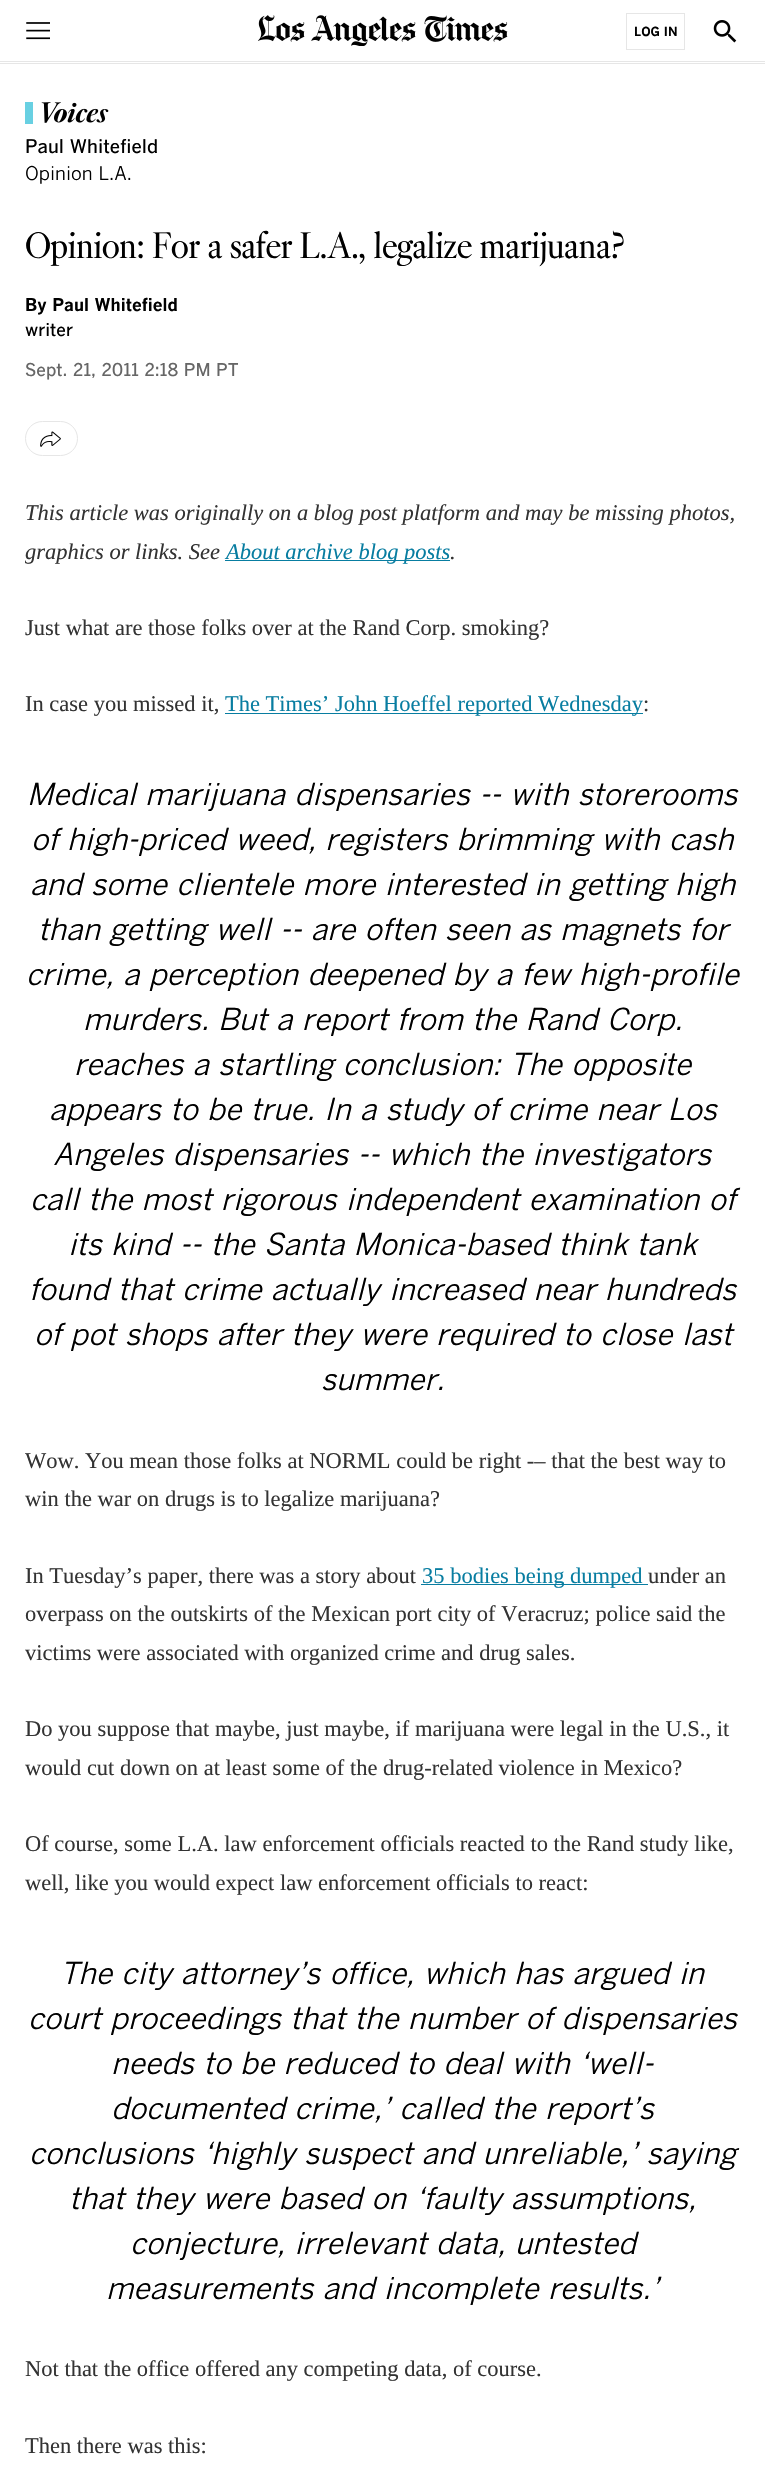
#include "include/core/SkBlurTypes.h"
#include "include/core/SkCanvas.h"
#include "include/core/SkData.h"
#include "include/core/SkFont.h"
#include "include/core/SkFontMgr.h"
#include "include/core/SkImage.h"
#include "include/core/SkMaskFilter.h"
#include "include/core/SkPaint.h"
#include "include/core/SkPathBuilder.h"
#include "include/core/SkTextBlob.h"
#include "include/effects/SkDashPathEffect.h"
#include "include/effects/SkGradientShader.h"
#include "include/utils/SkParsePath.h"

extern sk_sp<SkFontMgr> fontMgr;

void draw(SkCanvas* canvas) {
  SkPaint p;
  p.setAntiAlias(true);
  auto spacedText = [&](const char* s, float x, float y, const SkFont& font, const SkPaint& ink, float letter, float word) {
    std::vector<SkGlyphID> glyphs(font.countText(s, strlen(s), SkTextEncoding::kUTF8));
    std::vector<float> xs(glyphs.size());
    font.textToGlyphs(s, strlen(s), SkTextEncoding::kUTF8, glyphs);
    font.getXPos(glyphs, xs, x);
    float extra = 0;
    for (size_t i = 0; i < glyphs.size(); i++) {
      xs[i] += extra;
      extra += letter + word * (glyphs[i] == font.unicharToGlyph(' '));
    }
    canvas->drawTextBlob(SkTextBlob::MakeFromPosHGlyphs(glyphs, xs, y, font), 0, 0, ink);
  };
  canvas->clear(SK_ColorWHITE);
  p.setColor(SkColorSetRGB(230, 230, 230));
  canvas->drawRect(SkRect::MakeLTRB(0, 61, 765, 62), p);
  canvas->drawImageRect(SkImages::DeferredFromEncodedData(SkData::MakeFromFileName("images/1.png")), SkRect::MakeLTRB(26, 22, 50, 40), SkSamplingOptions());
  canvas->drawImageRect(SkImages::DeferredFromEncodedData(SkData::MakeFromFileName("images/2.png")), SkRect::MakeLTRB(258, 15, 508, 46), SkSamplingOptions());
  p.setStyle(SkPaint::kStroke_Style);
  p.setStrokeWidth(1);
  canvas->drawRect(SkRect::MakeLTRB(626.5f, 13.5f, 684.5f, 49.5f), p);
  canvas->drawImageRect(SkImages::DeferredFromEncodedData(SkData::MakeFromFileName("images/3.png")), SkRect::MakeLTRB(713, 20, 737, 43), SkSamplingOptions());
  p.setStyle(SkPaint::kFill_Style);
  canvas->drawRect(SkRect::MakeLTRB(0, 63, 765, 64), p);
  canvas->drawImageRect(SkImages::DeferredFromEncodedData(SkData::MakeFromFileName("images/4.png")), SkRect::MakeLTRB(25, 102, 109, 124), SkSamplingOptions());
  p.setStyle(SkPaint::kStroke_Style);
  canvas->drawRoundRect(SkRect::MakeLTRB(25.5f, 421.5f, 77.5f, 455.5f), 17, 17, p);
  canvas->drawImageRect(SkImages::DeferredFromEncodedData(SkData::MakeFromFileName("images/5.png")), SkRect::MakeLTRB(40, 431, 61, 447), SkSamplingOptions());
  p.setStyle(SkPaint::kFill_Style);
  p.setColor(SkColorSetRGB(8, 125, 161));
  canvas->drawRect(SkRect::MakeLTRB(225, 560, 450, 561), p);
  canvas->drawRect(SkRect::MakeLTRB(225, 713, 643, 714), p);
  canvas->drawRect(SkRect::MakeLTRB(421, 1584, 648, 1585), p);
  SkFont font1(fontMgr->matchFamilyStyle("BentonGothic", SkFontStyle::Bold()), 12.5f);
  font1.setSubpixel(true);
  p.setColor(SK_ColorBLACK);
  canvas->drawString("LOG IN", 634, 36, font1, p);
  SkFont font2(fontMgr->matchFamilyStyle("BentonGothic", SkFontStyle(500, SkFontStyle::kNormal_Width, SkFontStyle::kUpright_Slant)), 18.75f);
  font2.setSubpixel(true);
  canvas->drawString("Paul Whitefield", 25, 153, font2, p);
  SkFont font3(fontMgr->matchFamilyStyle("BentonGothic", SkFontStyle::Normal()), 18.75f);
  font3.setSubpixel(true);
  canvas->drawString("Opinion L.A.", 25, 180, font3, p);
  SkFont font4(fontMgr->matchFamilyStyle("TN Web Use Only", SkFontStyle::Normal()), 37.5f);
  font4.setSubpixel(true);
  spacedText("Opinion: For a safer L.A., legalize marijuana?", 25, 258, font4, p, -0.25f, 0);
  SkFont font5(fontMgr->matchFamilyStyle("BentonGothic", SkFontStyle::Bold()), 17.5f);
  font5.setSubpixel(true);
  canvas->drawString("By Paul Whitefield", 25, 311, font5, p);
  SkFont font6(fontMgr->matchFamilyStyle("BentonGothic", SkFontStyle(500, SkFontStyle::kNormal_Width, SkFontStyle::kUpright_Slant)), 17.5f);
  font6.setSubpixel(true);
  canvas->drawString("writer", 25, 336, font6, p);
  p.setColor(SkColorSetRGB(102, 102, 102));
  canvas->drawString("Sept. 21, 2011 2:18 PM PT", 25, 376, font6, p);
  SkFont font7(fontMgr->matchFamilyStyle("Liberation Serif", SkFontStyle::Italic()), 22.5f);
  font7.setSubpixel(true);
  p.setColor(SkColorSetRGB(51, 51, 51));
  canvas->drawString("This article was originally on a blog post platform and may be missing photos,", 25, 520, font7, p);
  canvas->drawString("graphics or links. See", 25, 559, font7, p);
  p.setColor(SkColorSetRGB(8, 125, 161));
  canvas->drawString("About archive blog posts", 226, 559, font7, p);
  p.setColor(SkColorSetRGB(51, 51, 51));
  canvas->drawString(".", 450, 559, font7, p);
  SkFont font8(fontMgr->matchFamilyStyle("Liberation Serif", SkFontStyle::Normal()), 22.5f);
  font8.setSubpixel(true);
  canvas->drawString("Just what are those folks over at the Rand Corp. smoking?", 25, 635, font8, p);
  canvas->drawString("In case you missed it,", 25, 711, font8, p);
  p.setColor(SkColorSetRGB(8, 125, 161));
  canvas->drawString("The Times’ John Hoeffel reported Wednesday", 225, 711, font8, p);
  p.setColor(SkColorSetRGB(51, 51, 51));
  canvas->drawString(":", 643, 711, font8, p);
  SkFont font9(fontMgr->matchFamilyStyle("BentonGothic", SkFontStyle::Italic()), 30);
  font9.setSubpixel(true);
  p.setColor(SK_ColorBLACK);
  canvas->drawString("Medical marijuana dispensaries -- with storerooms", 27, 805, font9, p);
  canvas->drawString("of high-priced weed, registers brimming with cash", 31, 850, font9, p);
  canvas->drawString("and some clientele more interested in getting high", 30, 895, font9, p);
  canvas->drawString("than getting well -- are often seen as magnets for", 38, 940, font9, p);
  canvas->drawString("crime, a perception deepened by a few high-profile", 26, 985, font9, p);
  canvas->drawString("murders. But a report from the Rand Corp.", 83, 1030, font9, p);
  canvas->drawString("reaches a startling conclusion: The opposite", 74, 1075, font9, p);
  canvas->drawString("appears to be true. In a study of crime near Los", 49, 1120, font9, p);
  canvas->drawString("Angeles dispensaries -- which the investigators", 53, 1165, font9, p);
  canvas->drawString("call the most rigorous independent examination of", 30, 1210, font9, p);
  canvas->drawString("its kind -- the Santa Monica-based think tank", 68, 1255, font9, p);
  canvas->drawString("found that crime actually increased near hundreds", 29, 1300, font9, p);
  canvas->drawString("of pot shops after they were required to close last", 34, 1345, font9, p);
  canvas->drawString("summer.", 321, 1390, font9, p);
  p.setColor(SkColorSetRGB(51, 51, 51));
  canvas->drawString("Wow. You mean those folks at NORML could be right -– that the best way to", 25, 1468, font8, p);
  canvas->drawString("win the war on drugs is to legalize marijuana?", 25, 1506, font8, p);
  canvas->drawString("In Tuesday’s paper, there was a story about", 25, 1583, font8, p);
  p.setColor(SkColorSetRGB(8, 125, 161));
  canvas->drawString("35 bodies being dumped", 422, 1583, font8, p);
  p.setColor(SkColorSetRGB(51, 51, 51));
  canvas->drawString("under an", 648, 1583, font8, p);
  canvas->drawString("overpass on the outskirts of the Mexican port city of Veracruz; police said the", 25, 1621, font8, p);
  canvas->drawString("victims were associated with organized crime and drug sales.", 25, 1660, font8, p);
  canvas->drawString("Do you suppose that maybe, just maybe, if marijuana were legal in the U.S., it", 25, 1736, font8, p);
  canvas->drawString("would cut down on at least some of the drug-related violence in Mexico?", 25, 1775, font8, p);
  canvas->drawString("Of course, some L.A. law enforcement officials reacted to the Rand study like,", 25, 1851, font8, p);
  canvas->drawString("well, like you would expect law enforcement officials to react:", 25, 1890, font8, p);
  p.setColor(SK_ColorBLACK);
  canvas->drawString("The city attorney’s office, which has argued in", 60, 1984, font9, p);
  canvas->drawString("court proceedings that the number of dispensaries", 28, 2029, font9, p);
  canvas->drawString("needs to be reduced to deal with ‘well-", 111, 2074, font9, p);
  canvas->drawString("documented crime,’ called the report’s", 111, 2119, font9, p);
  canvas->drawString("conclusions ‘highly suspect and unreliable,’ saying", 29, 2164, font9, p);
  canvas->drawString("that they were based on ‘faulty assumptions,", 69, 2209, font9, p);
  canvas->drawString("conjecture, irrelevant data, untested", 130, 2254, font9, p);
  canvas->drawString("measurements and incomplete results.’", 106, 2299, font9, p);
  p.setColor(SkColorSetRGB(51, 51, 51));
  canvas->drawString("Not that the office offered any competing data, of course.", 25, 2376, font8, p);
  canvas->drawString("Then there was this:", 25, 2453, font8, p);
}
